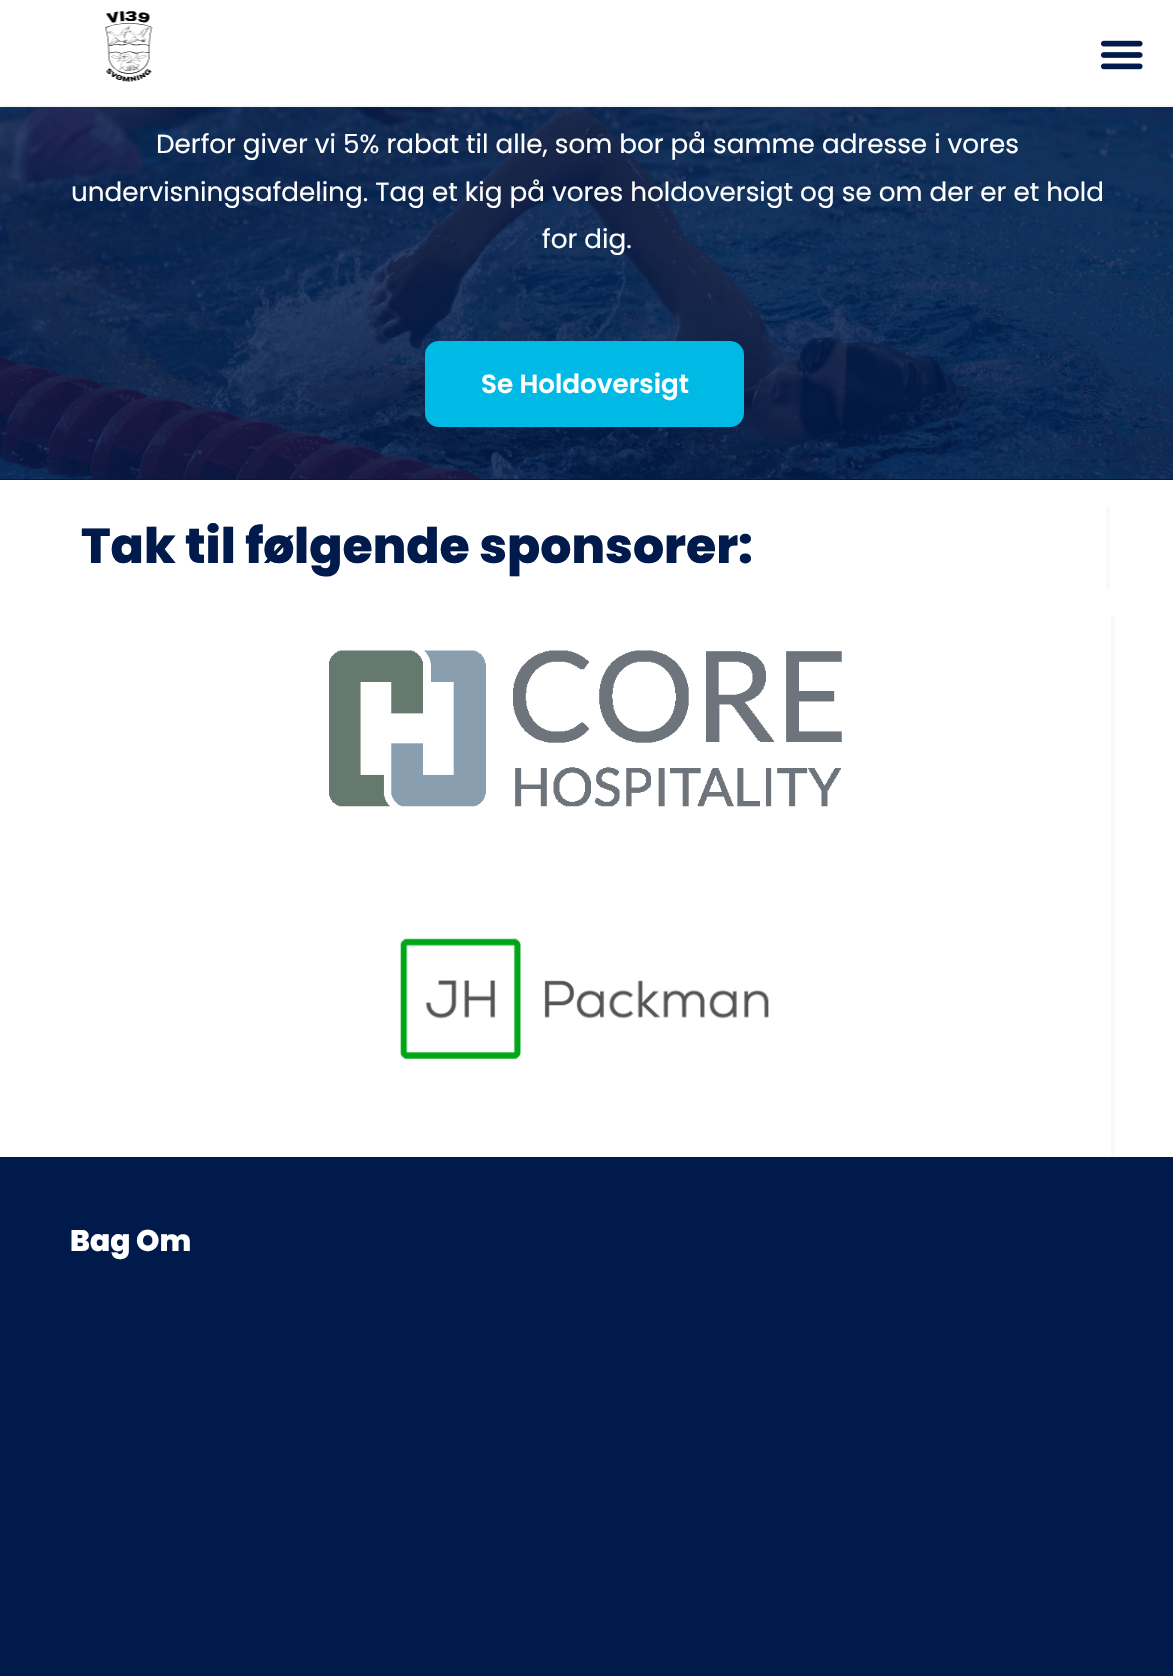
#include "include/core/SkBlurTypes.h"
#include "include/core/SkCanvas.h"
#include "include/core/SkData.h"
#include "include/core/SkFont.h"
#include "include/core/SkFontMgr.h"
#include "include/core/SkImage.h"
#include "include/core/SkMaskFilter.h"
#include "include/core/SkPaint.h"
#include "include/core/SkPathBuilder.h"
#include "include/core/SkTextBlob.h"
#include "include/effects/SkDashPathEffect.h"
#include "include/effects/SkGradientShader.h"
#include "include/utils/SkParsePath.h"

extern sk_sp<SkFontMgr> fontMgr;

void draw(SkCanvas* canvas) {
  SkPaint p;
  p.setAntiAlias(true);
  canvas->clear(SK_ColorWHITE);
  p.setColor(SkColorSetRGB(247, 247, 247));
  canvas->drawRect(SkRect::MakeLTRB(0, 105, 1173, 107), p);
  canvas->drawImageRect(SkImages::DeferredFromEncodedData(SkData::MakeFromFileName("images/1.png")), SkRect::MakeLTRB(104, 11, 153, 82), SkSamplingOptions());
  canvas->drawImageRect(SkImages::DeferredFromEncodedData(SkData::MakeFromFileName("images/2.png")), SkRect::MakeLTRB(1100, 40, 1143, 70), SkSamplingOptions());
  p.setColor(SkColorSetRGB(0, 27, 75));
  canvas->drawRect(SkRect::MakeLTRB(0, 479, 1173, 480), p);
  canvas->drawImageRect(SkImages::DeferredFromEncodedData(SkData::MakeFromFileName("images/3.png")), SkRect::MakeLTRB(0, 107, 1173, 479), SkSamplingOptions());
  p.setColor(SkColorSetRGB(0, 185, 228));
  canvas->drawRoundRect(SkRect::MakeLTRB(427, 343, 742, 425), 12, 12, p);
  p.setStyle(SkPaint::kStroke_Style);
  p.setStrokeWidth(4);
  canvas->drawRoundRect(SkRect::MakeLTRB(427, 343, 742, 425), 12, 12, p);
  p.setStyle(SkPaint::kFill_Style);
  p.setColor(SkColorSetRGB(248, 250, 252));
  canvas->drawRect(SkRect::MakeLTRB(1106, 506, 1110, 590), p);
  canvas->drawRect(SkRect::MakeLTRB(1111, 616, 1115, 1157), p);
  canvas->drawImageRect(SkImages::DeferredFromEncodedData(SkData::MakeFromFileName("images/4.png")), SkRect::MakeLTRB(329, 650, 842, 807), SkSamplingOptions());
  canvas->drawImageRect(SkImages::DeferredFromEncodedData(SkData::MakeFromFileName("images/5.png")), SkRect::MakeLTRB(400, 938, 769, 1059), SkSamplingOptions());
  p.setColor(SkColorSetRGB(0, 27, 75));
  canvas->drawRect(SkRect::MakeLTRB(0, 1157, 1173, 1676), p);
  SkFont font1(fontMgr->matchFamilyStyle("Poppins", SkFontStyle::Normal()), 26.25f);
  font1.setSubpixel(true);
  p.setColor(SK_ColorWHITE);
  canvas->drawString("Derfor giver vi 5% rabat til alle, som bor på samme adresse i vores", 156, 153, font1, p);
  canvas->drawString("undervisningsafdeling. Tag et kig på vores holdoversigt og se om der er et hold", 71, 201, font1, p);
  canvas->drawString("for dig.", 542, 248, font1, p);
  SkFont font2(fontMgr->matchFamilyStyle("Poppins", SkFontStyle(600, SkFontStyle::kNormal_Width, SkFontStyle::kUpright_Slant)), 26.25f);
  font2.setSubpixel(true);
  canvas->drawString("Se Holdoversigt", 481, 393, font2, p);
  SkFont font3(fontMgr->matchFamilyStyle("Poppins", SkFontStyle(800, SkFontStyle::kNormal_Width, SkFontStyle::kUpright_Slant)), 49);
  font3.setSubpixel(true);
  p.setColor(SkColorSetRGB(0, 27, 75));
  canvas->drawString("Tak til følgende sponsorer:", 81, 563, font3, p);
  SkFont font4(fontMgr->matchFamilyStyle("Poppins", SkFontStyle(800, SkFontStyle::kNormal_Width, SkFontStyle::kUpright_Slant)), 29.75f);
  font4.setSubpixel(true);
  p.setColor(SK_ColorWHITE);
  canvas->drawString("Bag Om", 70, 1251, font4, p);
}
